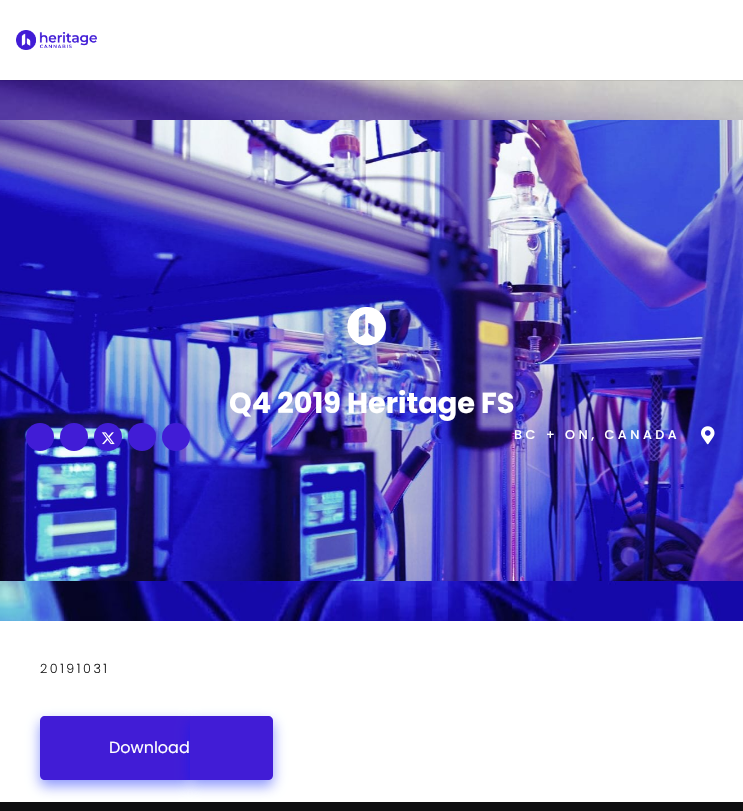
#include "include/core/SkBlurTypes.h"
#include "include/core/SkCanvas.h"
#include "include/core/SkData.h"
#include "include/core/SkFont.h"
#include "include/core/SkFontMgr.h"
#include "include/core/SkImage.h"
#include "include/core/SkMaskFilter.h"
#include "include/core/SkPaint.h"
#include "include/core/SkPathBuilder.h"
#include "include/core/SkTextBlob.h"
#include "include/effects/SkDashPathEffect.h"
#include "include/effects/SkGradientShader.h"
#include "include/utils/SkParsePath.h"

extern sk_sp<SkFontMgr> fontMgr;

void draw(SkCanvas* canvas) {
  SkPaint p;
  p.setAntiAlias(true);
  auto spacedText = [&](const char* s, float x, float y, const SkFont& font, const SkPaint& ink, float letter, float word) {
    std::vector<SkGlyphID> glyphs(font.countText(s, strlen(s), SkTextEncoding::kUTF8));
    std::vector<float> xs(glyphs.size());
    font.textToGlyphs(s, strlen(s), SkTextEncoding::kUTF8, glyphs);
    font.getXPos(glyphs, xs, x);
    float extra = 0;
    for (size_t i = 0; i < glyphs.size(); i++) {
      xs[i] += extra;
      extra += letter + word * (glyphs[i] == font.unicharToGlyph(' '));
    }
    canvas->drawTextBlob(SkTextBlob::MakeFromPosHGlyphs(glyphs, xs, y, font), 0, 0, ink);
  };
  canvas->clear(SK_ColorWHITE);
  canvas->drawImageRect(SkImages::DeferredFromEncodedData(SkData::MakeFromFileName("images/2.png")), SkRect::MakeLTRB(0, 80, 743, 621), SkSamplingOptions());
  p.setColor(SkColorSetARGB(20, 0, 0, 0));
  canvas->drawRect(SkRect::MakeLTRB(0, 80, 743, 81), p);
  canvas->drawImageRect(SkImages::DeferredFromEncodedData(SkData::MakeFromFileName("images/1.png")), SkRect::MakeLTRB(16, 30, 97, 50), SkSamplingOptions());
  canvas->drawImageRect(SkImages::DeferredFromEncodedData(SkData::MakeFromFileName("images/3.png")), SkRect::MakeLTRB(0, 120, 743, 581), SkSamplingOptions());
  canvas->drawImageRect(SkImages::DeferredFromEncodedData(SkData::MakeFromFileName("images/4.png")), SkRect::MakeLTRB(309, 295, 430, 393), SkSamplingOptions());
  p.setColor(SkColorSetRGB(65, 28, 214));
  canvas->drawCircle(40, 437, 14, p);
  canvas->drawCircle(74, 437, 14, p);
  canvas->drawCircle(108, 437, 14, p);
  canvas->drawImageRect(SkImages::DeferredFromEncodedData(SkData::MakeFromFileName("images/5.png")), SkRect::MakeLTRB(101, 432, 115, 445), SkSamplingOptions());
  canvas->drawCircle(142, 437, 14, p);
  canvas->drawCircle(176, 437, 14, p);
  canvas->drawImageRect(SkImages::DeferredFromEncodedData(SkData::MakeFromFileName("images/6.png")), SkRect::MakeLTRB(701, 426, 715, 445), SkSamplingOptions());
  p.setColor(SkColorSetARGB(115, 0, 23, 249));
  p.setMaskFilter(SkMaskFilter::MakeBlur(kNormal_SkBlurStyle, 6.5f));
  canvas->drawRoundRect(SkRect::MakeLTRB(40, 722, 190, 786), 5, 5, p);
  p.setMaskFilter(nullptr);
  p.setColor(SkColorSetRGB(65, 28, 214));
  canvas->drawPath(SkPathBuilder().moveTo(45, 716).lineTo(190, 716).lineTo(190, 780).lineTo(45, 780).cubicTo(42, 780, 40, 778, 40, 775).lineTo(40, 721).cubicTo(40, 718, 42, 716, 45, 716).close().detach(), p);
  p.setColor(SkColorSetARGB(115, 0, 23, 249));
  p.setMaskFilter(SkMaskFilter::MakeBlur(kNormal_SkBlurStyle, 6.5f));
  canvas->drawRoundRect(SkRect::MakeLTRB(190, 722, 273, 786), 5, 5, p);
  p.setMaskFilter(nullptr);
  p.setColor(SkColorSetRGB(65, 28, 214));
  canvas->drawPath(SkPathBuilder().moveTo(190, 716).lineTo(268, 716).cubicTo(271, 716, 273, 718, 273, 721).lineTo(273, 775).cubicTo(273, 778, 271, 780, 268, 780).lineTo(190, 780).close().detach(), p);
  p.setColor(SkColorSetRGB(14, 14, 16));
  canvas->drawRect(SkRect::MakeLTRB(0, 802, 743, 811), p);
  SkFont font1(fontMgr->matchFamilyStyle("Poppins", SkFontStyle::Bold()), 28.75f);
  font1.setSubpixel(true);
  p.setColor(SK_ColorWHITE);
  canvas->drawString("Q4 2019 Heritage FS", 229, 413, font1, p);
  SkFont font2(fontMgr->matchFamilyStyle("Poppins", SkFontStyle(500, SkFontStyle::kNormal_Width, SkFontStyle::kUpright_Slant)), 12.75f);
  font2.setSubpixel(true);
  spacedText("BC + ON, CANADA", 514, 439, font2, p, 3.5f, 0);
  SkFont font3(fontMgr->matchFamilyStyle("Poppins", SkFontStyle(300, SkFontStyle::kNormal_Width, SkFontStyle::kUpright_Slant)), 12.75f);
  font3.setSubpixel(true);
  p.setColor(SkColorSetRGB(31, 31, 31));
  spacedText("20191031", 40, 673, font3, p, 2.5f, 0);
  SkFont font4(fontMgr->matchFamilyStyle("Poppins", SkFontStyle::Normal()), 16);
  font4.setSubpixel(true);
  p.setColor(SK_ColorWHITE);
  canvas->drawString("Download", 109, 753, font4, p);
}
